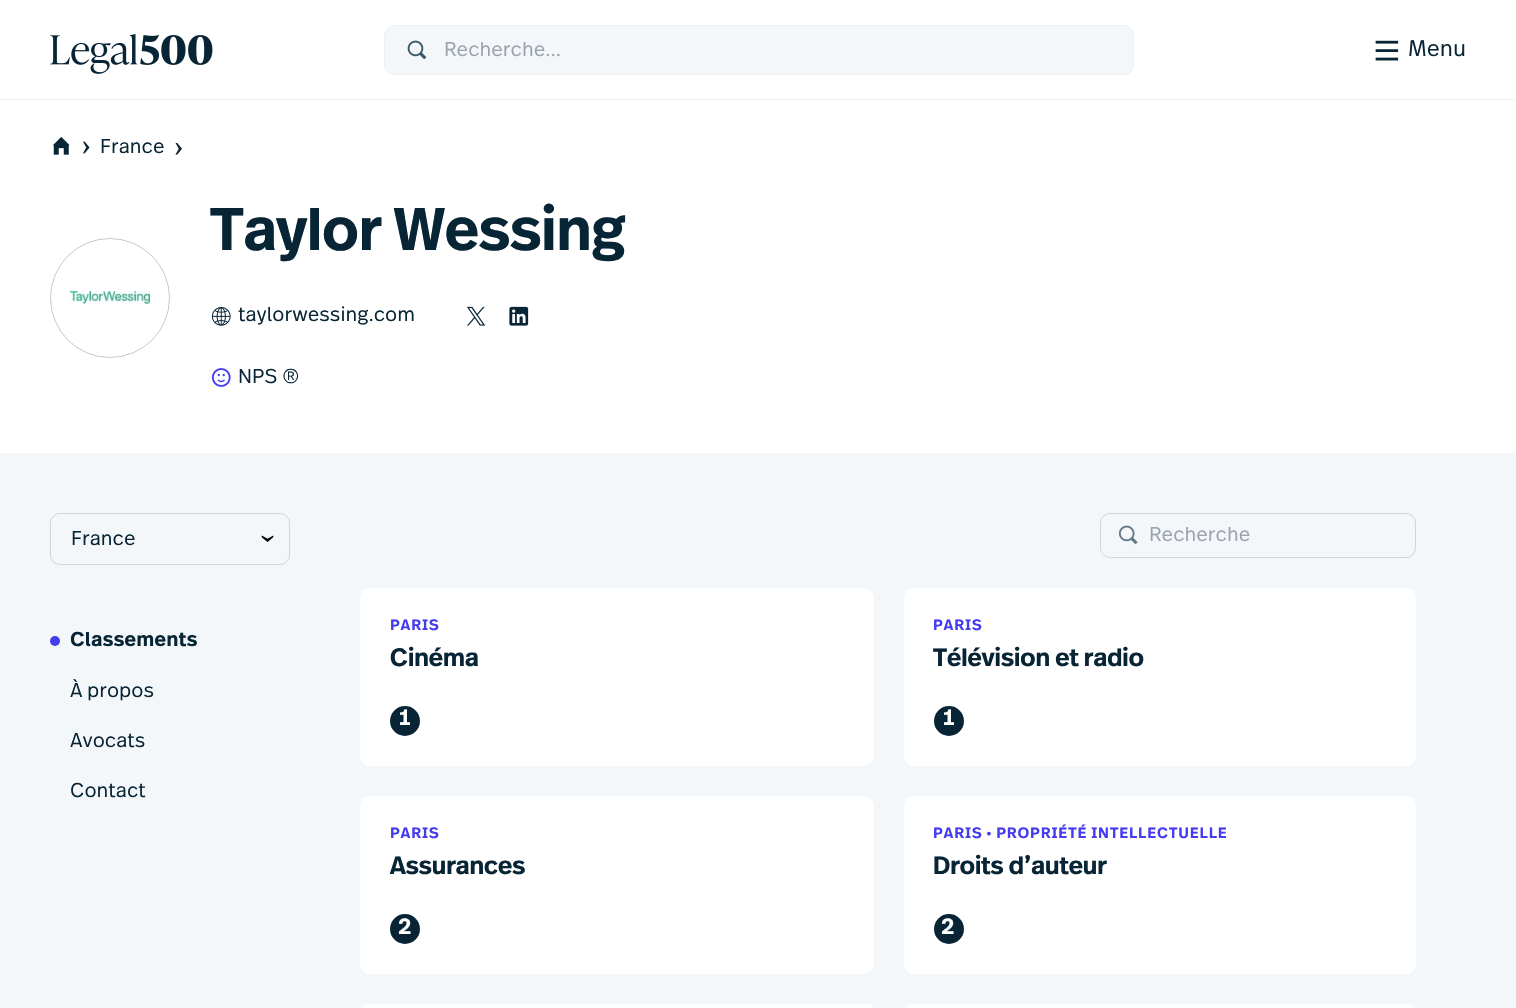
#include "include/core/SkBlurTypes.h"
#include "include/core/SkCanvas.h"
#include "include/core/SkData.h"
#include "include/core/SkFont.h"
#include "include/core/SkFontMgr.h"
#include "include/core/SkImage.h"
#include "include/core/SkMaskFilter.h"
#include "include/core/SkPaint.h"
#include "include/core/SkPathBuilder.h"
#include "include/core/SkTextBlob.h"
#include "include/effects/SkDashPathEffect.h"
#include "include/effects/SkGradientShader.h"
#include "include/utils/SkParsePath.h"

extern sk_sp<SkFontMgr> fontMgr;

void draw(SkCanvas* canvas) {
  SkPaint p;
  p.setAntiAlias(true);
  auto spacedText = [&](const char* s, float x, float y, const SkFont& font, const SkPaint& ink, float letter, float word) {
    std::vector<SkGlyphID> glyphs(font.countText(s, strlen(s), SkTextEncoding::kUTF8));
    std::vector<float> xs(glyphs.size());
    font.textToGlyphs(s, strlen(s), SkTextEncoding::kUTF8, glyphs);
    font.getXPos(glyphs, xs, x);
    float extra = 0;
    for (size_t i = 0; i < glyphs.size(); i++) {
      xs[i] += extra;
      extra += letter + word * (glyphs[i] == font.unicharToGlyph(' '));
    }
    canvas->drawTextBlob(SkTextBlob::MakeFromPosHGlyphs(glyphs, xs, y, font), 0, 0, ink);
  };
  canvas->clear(SK_ColorWHITE);
  p.setColor(SkColorSetRGB(237, 241, 245));
  canvas->drawRect(SkRect::MakeLTRB(0, 99, 1516, 100), p);
  canvas->drawImageRect(SkImages::DeferredFromEncodedData(SkData::MakeFromFileName("images/1.png")), SkRect::MakeLTRB(50, 34, 213, 74), SkSamplingOptions());
  p.setColor(SkColorSetRGB(244, 247, 250));
  canvas->drawRoundRect(SkRect::MakeLTRB(384.5f, 25.5f, 1133.5f, 74.5f), 9.5f, 9.5f, p);
  p.setStyle(SkPaint::kStroke_Style);
  p.setStrokeWidth(1);
  p.setColor(SkColorSetRGB(237, 241, 245));
  canvas->drawRoundRect(SkRect::MakeLTRB(384.5f, 25.5f, 1133.5f, 74.5f), 9.5f, 9.5f, p);
  canvas->drawImageRect(SkImages::DeferredFromEncodedData(SkData::MakeFromFileName("images/2.png")), SkRect::MakeLTRB(407, 40, 427, 60), SkSamplingOptions());
  canvas->drawImageRect(SkImages::DeferredFromEncodedData(SkData::MakeFromFileName("images/3.png")), SkRect::MakeLTRB(1375, 40, 1399, 61), SkSamplingOptions());
  p.setStyle(SkPaint::kFill_Style);
  p.setColor(SkColorSetRGB(244, 247, 250));
  canvas->drawRect(SkRect::MakeLTRB(0, 453, 1516, 1008), p);
  canvas->drawImageRect(SkImages::DeferredFromEncodedData(SkData::MakeFromFileName("images/4.png")), SkRect::MakeLTRB(52, 137, 70, 155), SkSamplingOptions());
  canvas->drawImageRect(SkImages::DeferredFromEncodedData(SkData::MakeFromFileName("images/5.png")), SkRect::MakeLTRB(83, 141, 90, 154), SkSamplingOptions());
  canvas->drawImageRect(SkImages::DeferredFromEncodedData(SkData::MakeFromFileName("images/6.png")), SkRect::MakeLTRB(175, 142, 182, 155), SkSamplingOptions());
  p.setStyle(SkPaint::kStroke_Style);
  p.setColor(SkColorSetRGB(192, 201, 211));
  canvas->drawCircle(110, 298, 59.5f, p);
  canvas->drawImageRect(SkImages::DeferredFromEncodedData(SkData::MakeFromFileName("images/7.png")), SkRect::MakeLTRB(70, 291, 150, 304), SkSamplingOptions());
  canvas->drawImageRect(SkImages::DeferredFromEncodedData(SkData::MakeFromFileName("images/8.png")), SkRect::MakeLTRB(211, 307, 231, 326), SkSamplingOptions());
  canvas->drawImageRect(SkImages::DeferredFromEncodedData(SkData::MakeFromFileName("images/9.png")), SkRect::MakeLTRB(467, 306, 486, 326), SkSamplingOptions());
  canvas->drawImageRect(SkImages::DeferredFromEncodedData(SkData::MakeFromFileName("images/10.png")), SkRect::MakeLTRB(509, 306, 529, 326), SkSamplingOptions());
  canvas->drawImageRect(SkImages::DeferredFromEncodedData(SkData::MakeFromFileName("images/11.png")), SkRect::MakeLTRB(211, 368, 231, 387), SkSamplingOptions());
  p.setColor(SkColorSetRGB(207, 213, 220));
  canvas->drawRoundRect(SkRect::MakeLTRB(50.5f, 513.5f, 289.5f, 564.5f), 9.5f, 9.5f, p);
  canvas->drawImageRect(SkImages::DeferredFromEncodedData(SkData::MakeFromFileName("images/12.png")), SkRect::MakeLTRB(261, 535, 274, 542), SkSamplingOptions());
  p.setStyle(SkPaint::kFill_Style);
  p.setColor(SkColorSetRGB(69, 60, 240));
  canvas->drawCircle(55, 641, 5, p);
  p.setStyle(SkPaint::kStroke_Style);
  p.setColor(SkColorSetRGB(207, 213, 220));
  canvas->drawRoundRect(SkRect::MakeLTRB(1100.5f, 513.5f, 1415.5f, 557.5f), 9.5f, 9.5f, p);
  canvas->drawImageRect(SkImages::DeferredFromEncodedData(SkData::MakeFromFileName("images/13.png")), SkRect::MakeLTRB(1118, 525, 1138, 545), SkSamplingOptions());
  p.setStyle(SkPaint::kFill_Style);
  p.setColor(SK_ColorWHITE);
  canvas->drawRoundRect(SkRect::MakeLTRB(360, 588, 874, 766), 10, 10, p);
  p.setColor(SkColorSetRGB(8, 37, 54));
  canvas->drawCircle(405, 721, 15, p);
  p.setColor(SK_ColorWHITE);
  canvas->drawRoundRect(SkRect::MakeLTRB(904, 588, 1416, 766), 10, 10, p);
  p.setColor(SkColorSetRGB(8, 37, 54));
  canvas->drawCircle(949, 721, 15, p);
  p.setColor(SK_ColorWHITE);
  canvas->drawRoundRect(SkRect::MakeLTRB(360, 796, 874, 974), 10, 10, p);
  p.setColor(SkColorSetRGB(8, 37, 54));
  canvas->drawCircle(405, 929, 15, p);
  p.setColor(SK_ColorWHITE);
  canvas->drawRoundRect(SkRect::MakeLTRB(904, 796, 1416, 974), 10, 10, p);
  p.setColor(SkColorSetRGB(8, 37, 54));
  canvas->drawCircle(949, 929, 15, p);
  p.setColor(SK_ColorWHITE);
  canvas->drawRoundRect(SkRect::MakeLTRB(360, 1004, 874, 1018), 10, 10, p);
  canvas->drawRoundRect(SkRect::MakeLTRB(904, 1004, 1416, 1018), 10, 10, p);
  SkFont font1(fontMgr->matchFamilyStyle("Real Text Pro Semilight", SkFontStyle(300, SkFontStyle::kNormal_Width, SkFontStyle::kUpright_Slant)), 20);
  font1.setSubpixel(true);
  p.setColor(SkColorSetRGB(156, 163, 175));
  canvas->drawString("Recherche...", 444, 56, font1, p);
  SkFont font2(fontMgr->matchFamilyStyle("Real Text Pro Semilight", SkFontStyle(300, SkFontStyle::kNormal_Width, SkFontStyle::kUpright_Slant)), 22.5f);
  font2.setSubpixel(true);
  p.setColor(SkColorSetRGB(8, 37, 54));
  canvas->drawString("Menu", 1408, 56, font2, p);
  canvas->drawString("France", 100, 153, font1, p);
  SkFont font3(fontMgr->matchFamilyStyle("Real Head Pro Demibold", SkFontStyle(600, SkFontStyle::kNormal_Width, SkFontStyle::kUpright_Slant)), 60);
  font3.setSubpixel(true);
  canvas->drawString("Taylor Wessing", 210, 250, font3, p);
  canvas->drawString("taylorwessing.com", 238, 321, font1, p);
  canvas->drawString("NPS ®", 238, 383, font1, p);
  canvas->drawString("France", 71, 545, font1, p);
  SkFont font4(fontMgr->matchFamilyStyle("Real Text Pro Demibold", SkFontStyle(600, SkFontStyle::kNormal_Width, SkFontStyle::kUpright_Slant)), 20);
  font4.setSubpixel(true);
  canvas->drawString("Classements", 70, 646, font4, p);
  canvas->drawString("À propos", 70, 697, font1, p);
  canvas->drawString("Avocats", 70, 747, font1, p);
  canvas->drawString("Contact", 70, 797, font1, p);
  p.setColor(SkColorSetRGB(156, 163, 175));
  canvas->drawString("Recherche", 1149, 541, font1, p);
  SkFont font5(fontMgr->matchFamilyStyle("Real Text Pro Demibold", SkFontStyle(600, SkFontStyle::kNormal_Width, SkFontStyle::kUpright_Slant)), 15);
  font5.setSubpixel(true);
  p.setColor(SkColorSetRGB(69, 60, 240));
  spacedText("PARIS", 390, 630, font5, p, 0.75f, 0);
  SkFont font6(fontMgr->matchFamilyStyle("Real Head Pro Demibold", SkFontStyle(600, SkFontStyle::kNormal_Width, SkFontStyle::kUpright_Slant)), 25);
  font6.setSubpixel(true);
  p.setColor(SkColorSetRGB(8, 37, 54));
  canvas->drawString("Cinéma", 390, 666, font6, p);
  SkFont font7(fontMgr->matchFamilyStyle("Real Head Pro Demibold", SkFontStyle(600, SkFontStyle::kNormal_Width, SkFontStyle::kUpright_Slant)), 22.5f);
  font7.setSubpixel(true);
  p.setColor(SK_ColorWHITE);
  canvas->drawString("1", 399, 725, font7, p);
  p.setColor(SkColorSetRGB(69, 60, 240));
  spacedText("PARIS", 933, 630, font5, p, 0.75f, 0);
  p.setColor(SkColorSetRGB(8, 37, 54));
  canvas->drawString("Télévision et radio", 933, 666, font6, p);
  p.setColor(SK_ColorWHITE);
  canvas->drawString("1", 943, 725, font7, p);
  p.setColor(SkColorSetRGB(69, 60, 240));
  spacedText("PARIS", 390, 838, font5, p, 0.75f, 0);
  p.setColor(SkColorSetRGB(8, 37, 54));
  canvas->drawString("Assurances", 390, 874, font6, p);
  p.setColor(SK_ColorWHITE);
  canvas->drawString("2", 398, 934, font7, p);
  p.setColor(SkColorSetRGB(69, 60, 240));
  spacedText("PARIS • PROPRIÉTÉ INTELLECTUELLE", 933, 838, font5, p, 0.75f, 0);
  p.setColor(SkColorSetRGB(8, 37, 54));
  canvas->drawString("Droits d’auteur", 933, 874, font6, p);
  p.setColor(SK_ColorWHITE);
  canvas->drawString("2", 941, 934, font7, p);
}
